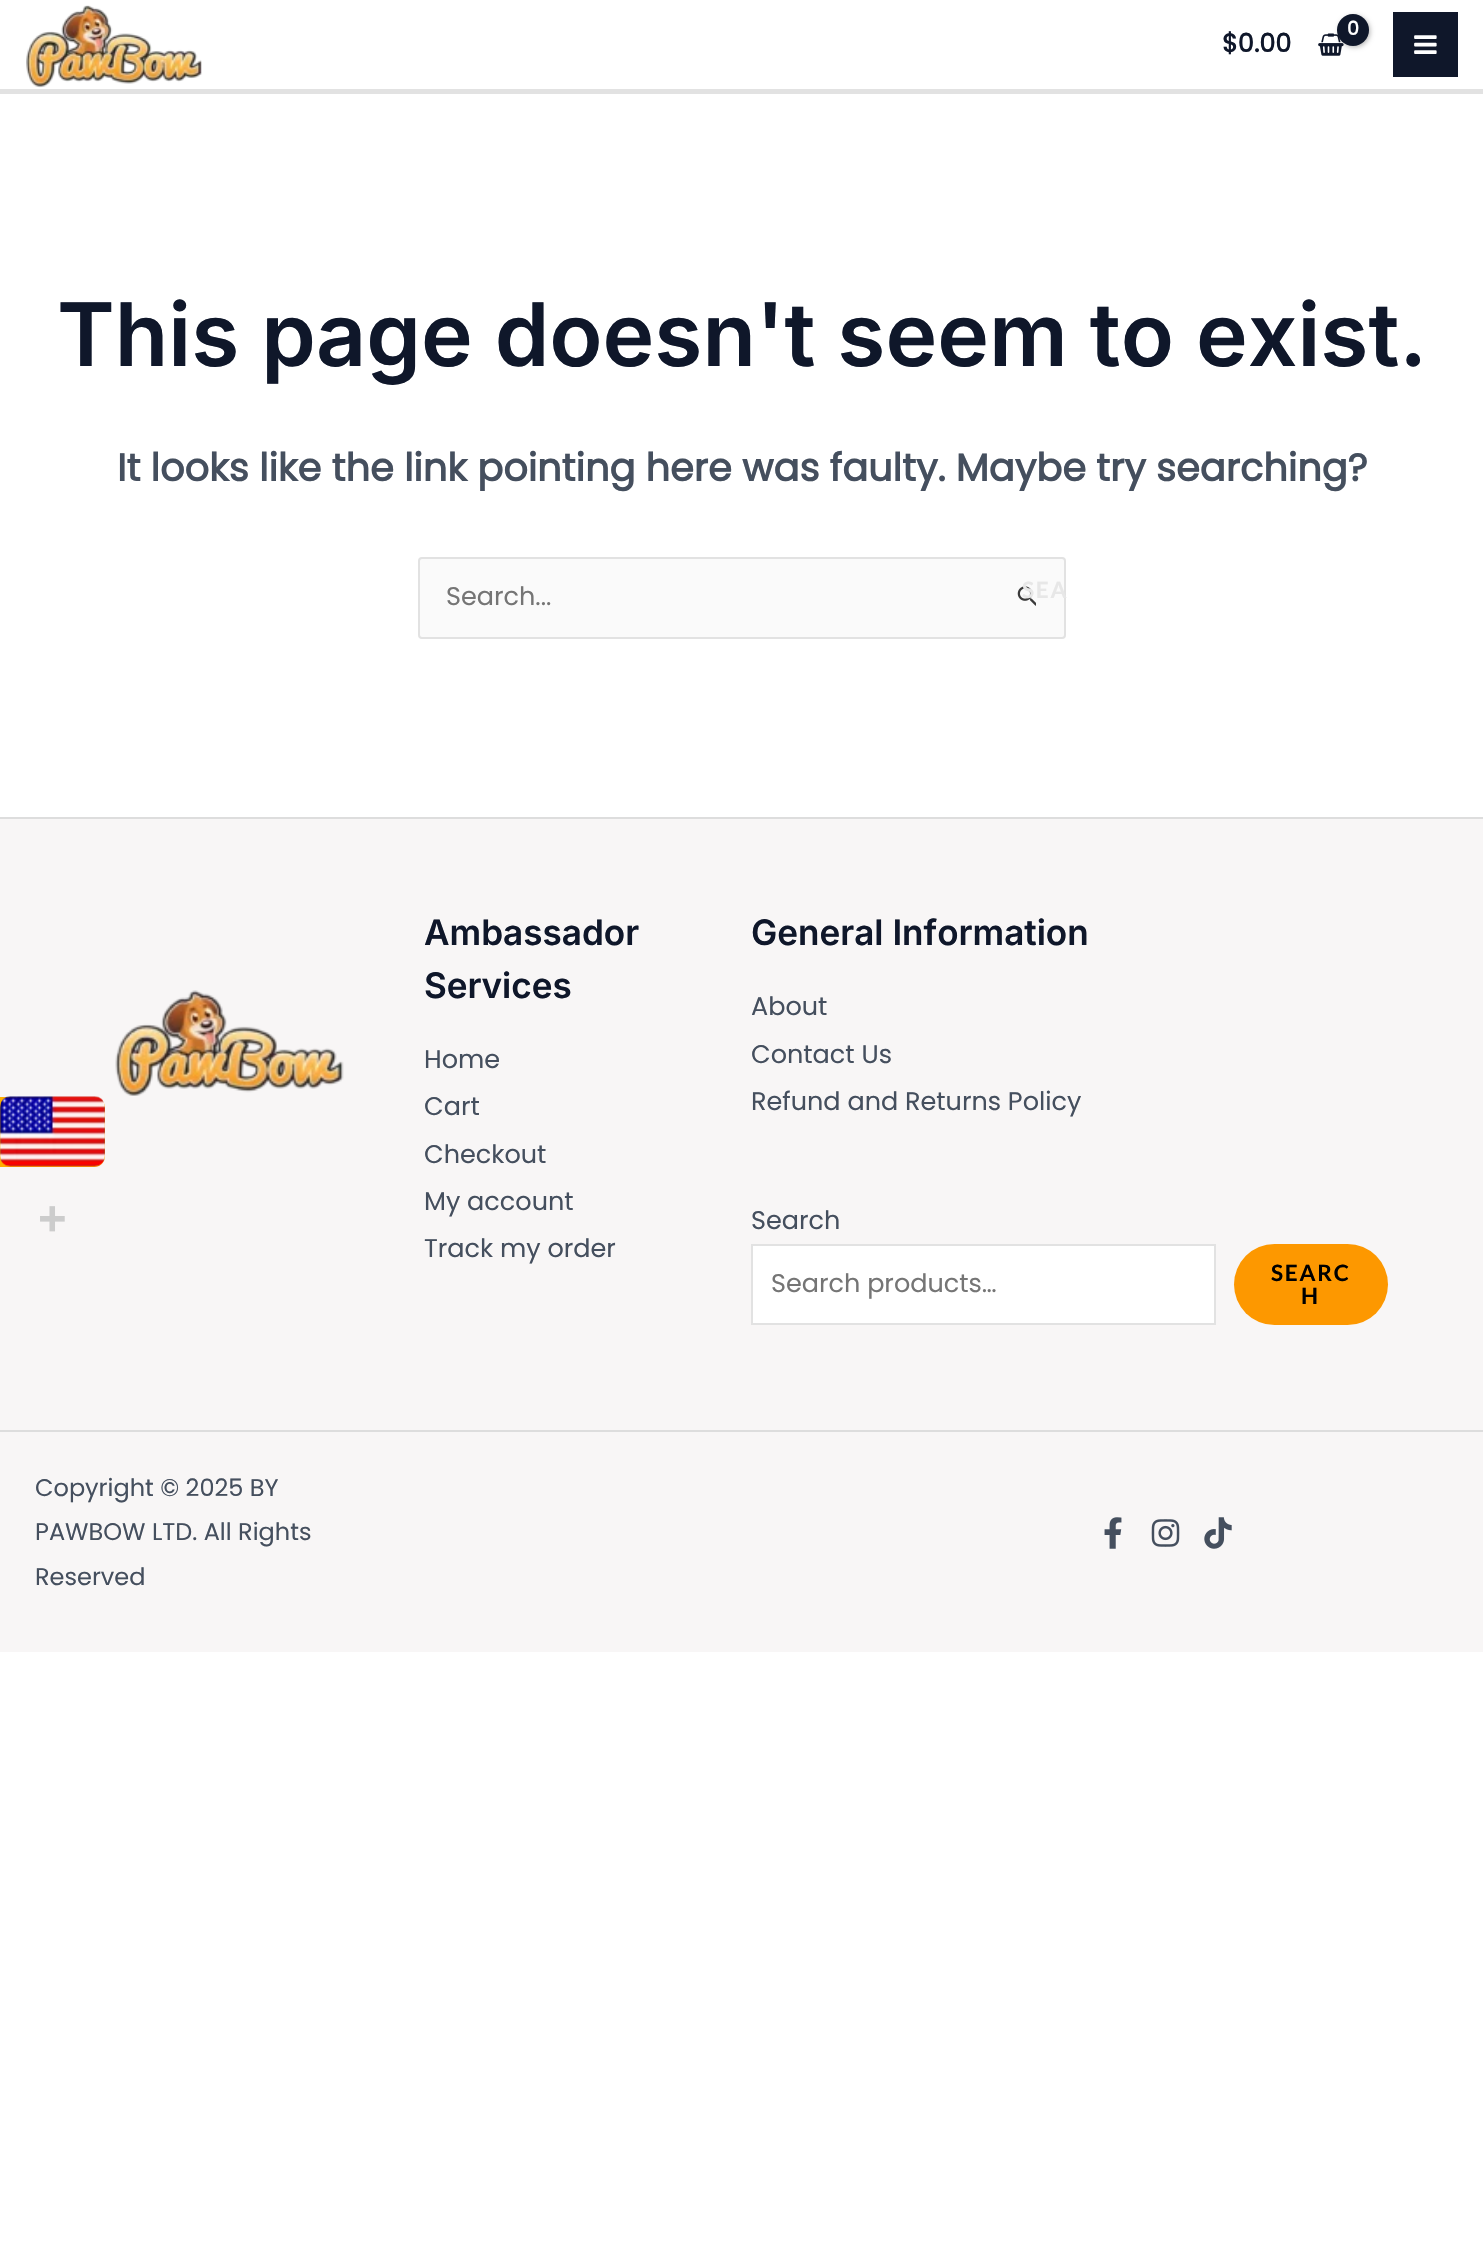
#include "include/core/SkBlurTypes.h"
#include "include/core/SkCanvas.h"
#include "include/core/SkData.h"
#include "include/core/SkFont.h"
#include "include/core/SkFontMgr.h"
#include "include/core/SkImage.h"
#include "include/core/SkMaskFilter.h"
#include "include/core/SkPaint.h"
#include "include/core/SkPathBuilder.h"
#include "include/core/SkTextBlob.h"
#include "include/effects/SkDashPathEffect.h"
#include "include/effects/SkGradientShader.h"
#include "include/utils/SkParsePath.h"

extern sk_sp<SkFontMgr> fontMgr;

void draw(SkCanvas* canvas) {
  SkPaint p;
  p.setAntiAlias(true);
  auto spacedText = [&](const char* s, float x, float y, const SkFont& font, const SkPaint& ink, float letter, float word) {
    std::vector<SkGlyphID> glyphs(font.countText(s, strlen(s), SkTextEncoding::kUTF8));
    std::vector<float> xs(glyphs.size());
    font.textToGlyphs(s, strlen(s), SkTextEncoding::kUTF8, glyphs);
    font.getXPos(glyphs, xs, x);
    float extra = 0;
    for (size_t i = 0; i < glyphs.size(); i++) {
      xs[i] += extra;
      extra += letter + word * (glyphs[i] == font.unicharToGlyph(' '));
    }
    canvas->drawTextBlob(SkTextBlob::MakeFromPosHGlyphs(glyphs, xs, y, font), 0, 0, ink);
  };
  canvas->clear(SK_ColorWHITE);
  p.setColor(SkColorSetRGB(226, 226, 226));
  canvas->drawRect(SkRect::MakeLTRB(0, 89, 1483, 94), p);
  canvas->drawImageRect(SkImages::DeferredFromEncodedData(SkData::MakeFromFileName("images/1.png")), SkRect::MakeLTRB(26, 5, 202, 88), SkSamplingOptions());
  canvas->drawImageRect(SkImages::DeferredFromEncodedData(SkData::MakeFromFileName("images/2.png")), SkRect::MakeLTRB(1318, 33, 1344, 56), SkSamplingOptions());
  p.setColor(SkColorSetARGB(77, 0, 0, 0));
  p.setMaskFilter(SkMaskFilter::MakeBlur(kNormal_SkBlurStyle, 2.5f));
  canvas->drawRoundRect(SkRect::MakeLTRB(1339, 16, 1370, 47), 15.5f, 15.5f, p);
  p.setMaskFilter(nullptr);
  p.setColor(SkColorSetRGB(15, 23, 42));
  canvas->drawCircle(1353, 30, 16, p);
  canvas->drawRect(SkRect::MakeLTRB(1393, 12, 1458, 77), p);
  canvas->drawImageRect(SkImages::DeferredFromEncodedData(SkData::MakeFromFileName("images/3.png")), SkRect::MakeLTRB(1414, 35, 1437, 54), SkSamplingOptions());
  p.setColor(SkColorSetRGB(250, 250, 250));
  canvas->drawRoundRect(SkRect::MakeLTRB(419, 558, 1065, 638), 3, 3, p);
  p.setStyle(SkPaint::kStroke_Style);
  p.setStrokeWidth(2);
  p.setColor(SkColorSetRGB(226, 226, 226));
  canvas->drawRoundRect(SkRect::MakeLTRB(419, 558, 1065, 638), 3, 3, p);
  canvas->drawImageRect(SkImages::DeferredFromEncodedData(SkData::MakeFromFileName("images/4.png")), SkRect::MakeLTRB(1017, 586, 1036, 606), SkSamplingOptions());
  p.setStyle(SkPaint::kFill_Style);
  p.setColor(SkColorSetRGB(248, 246, 246));
  canvas->drawRect(SkRect::MakeLTRB(0, 819, 1483, 1430), p);
  p.setColor(SkColorSetRGB(221, 221, 221));
  canvas->drawRect(SkRect::MakeLTRB(0, 817, 1483, 819), p);
  canvas->drawImageRect(SkImages::DeferredFromEncodedData(SkData::MakeFromFileName("images/5.png")), SkRect::MakeLTRB(115, 990, 344, 1096), SkSamplingOptions());
  p.setColor(SK_ColorWHITE);
  canvas->drawRect(SkRect::MakeLTRB(752, 1245, 1215, 1324), p);
  p.setStyle(SkPaint::kStroke_Style);
  p.setColor(SkColorSetRGB(226, 226, 226));
  canvas->drawRect(SkRect::MakeLTRB(752, 1245, 1215, 1324), p);
  p.setStyle(SkPaint::kFill_Style);
  p.setColor(SkColorSetRGB(253, 152, 0));
  canvas->drawRoundRect(SkRect::MakeLTRB(1234, 1244, 1388, 1325), 40.5f, 40.5f, p);
  p.setColor(SkColorSetRGB(248, 246, 246));
  canvas->drawRect(SkRect::MakeLTRB(0, 1432, 1483, 1652), p);
  p.setColor(SkColorSetRGB(221, 221, 221));
  canvas->drawRect(SkRect::MakeLTRB(0, 1430, 1483, 1432), p);
  canvas->drawImageRect(SkImages::DeferredFromEncodedData(SkData::MakeFromFileName("images/6.png")), SkRect::MakeLTRB(1104, 1517, 1122, 1549), SkSamplingOptions());
  canvas->drawImageRect(SkImages::DeferredFromEncodedData(SkData::MakeFromFileName("images/7.png")), SkRect::MakeLTRB(1151, 1519, 1180, 1547), SkSamplingOptions());
  canvas->drawImageRect(SkImages::DeferredFromEncodedData(SkData::MakeFromFileName("images/8.png")), SkRect::MakeLTRB(1204, 1517, 1232, 1549), SkSamplingOptions());
  p.setColor(SkColorSetRGB(255, 174, 0));
  canvas->drawRoundRect(SkRect::MakeLTRB(-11, 1097, 105, 1167), 11, 11, p);
  canvas->drawImageRect(SkImages::DeferredFromEncodedData(SkData::MakeFromFileName("images/9.png")), SkRect::MakeLTRB(0, 1096, 105, 1167), SkSamplingOptions());
  SkFont font1(fontMgr->matchFamilyStyle("Poppins", SkFontStyle::Bold()), 19);
  font1.setSubpixel(true);
  p.setColor(SK_ColorWHITE);
  spacedText("0", 1347, 35, font1, p, -1, 0);
  SkFont font2(fontMgr->matchFamilyStyle("Poppins", SkFontStyle::Bold()), 25.5f);
  font2.setSubpixel(true);
  p.setColor(SkColorSetRGB(15, 23, 42));
  canvas->drawString("$0.00", 1222, 52, font2, p);
  SkFont font3(fontMgr->matchFamilyStyle("Inter", SkFontStyle(600, SkFontStyle::kNormal_Width, SkFontStyle::kUpright_Slant)), 87.5f);
  font3.setSubpixel(true);
  canvas->drawString("This page doesn't seem to exist.", 57, 366, font3, p);
  SkFont font4(fontMgr->matchFamilyStyle("Poppins", SkFontStyle::Bold()), 38.3f);
  font4.setSubpixel(true);
  p.setColor(SkColorSetRGB(69, 79, 94));
  canvas->drawString("It looks like the link pointing here was faulty. Maybe try searching?", 117, 481, font4, p);
  SkFont font5(fontMgr->matchFamilyStyle("Poppins", SkFontStyle::Normal()), 25.5f);
  font5.setSubpixel(true);
  p.setColor(SkColorSetRGB(117, 117, 117));
  canvas->drawString("Search...", 446, 605, font5, p);
  SkFont font6(fontMgr->matchFamilyStyle("Lato", SkFontStyle::Bold()), 22.5f);
  font6.setSubpixel(true);
  p.setColor(SkColorSetRGB(231, 231, 231));
  spacedText("SEA", 1022, 598, font6, p, 1.75f, 0);
  SkFont font7(fontMgr->matchFamilyStyle("Inter", SkFontStyle(600, SkFontStyle::kNormal_Width, SkFontStyle::kUpright_Slant)), 35.1f);
  font7.setSubpixel(true);
  p.setColor(SkColorSetRGB(15, 23, 42));
  canvas->drawString("Ambassador", 424, 945, font7, p);
  canvas->drawString("Services", 424, 998, font7, p);
  p.setColor(SkColorSetRGB(69, 79, 94));
  canvas->drawString("Home", 424, 1068, font5, p);
  canvas->drawString("Cart", 424, 1115, font5, p);
  canvas->drawString("Checkout", 424, 1163, font5, p);
  canvas->drawString("My account", 424, 1210, font5, p);
  canvas->drawString("Track my order", 424, 1257, font5, p);
  p.setColor(SkColorSetRGB(15, 23, 42));
  canvas->drawString("General Information", 751, 945, font7, p);
  p.setColor(SkColorSetRGB(69, 79, 94));
  canvas->drawString("About", 751, 1015, font5, p);
  canvas->drawString("Contact Us", 751, 1063, font5, p);
  canvas->drawString("Refund and Returns Policy", 751, 1110, font5, p);
  canvas->drawString("Search", 751, 1229, font5, p);
  p.setColor(SkColorSetRGB(117, 117, 117));
  canvas->drawString("Search products…", 771, 1292, font5, p);
  p.setColor(SK_ColorBLACK);
  spacedText("SEARC", 1271, 1281, font6, p, 1.75f, 0);
  spacedText("H", 1301, 1304, font6, p, 1.75f, 0);
  SkFont font8(fontMgr->matchFamilyStyle("Poppins", SkFontStyle::Normal()), 24);
  font8.setSubpixel(true);
  p.setColor(SkColorSetRGB(69, 79, 94));
  canvas->drawString("Copyright © 2025 BY", 35, 1496, font8, p);
  canvas->drawString("PAWBOW LTD. All Rights", 35, 1540, font8, p);
  canvas->drawString("Reserved", 35, 1585, font8, p);
  SkFont font9(fontMgr->matchFamilyStyle("Liberation Sans", SkFontStyle::Bold()), 49);
  font9.setSubpixel(true);
  p.setColor(SkColorSetRGB(204, 204, 204));
  canvas->drawString("+", 38, 1235, font9, p);
}
